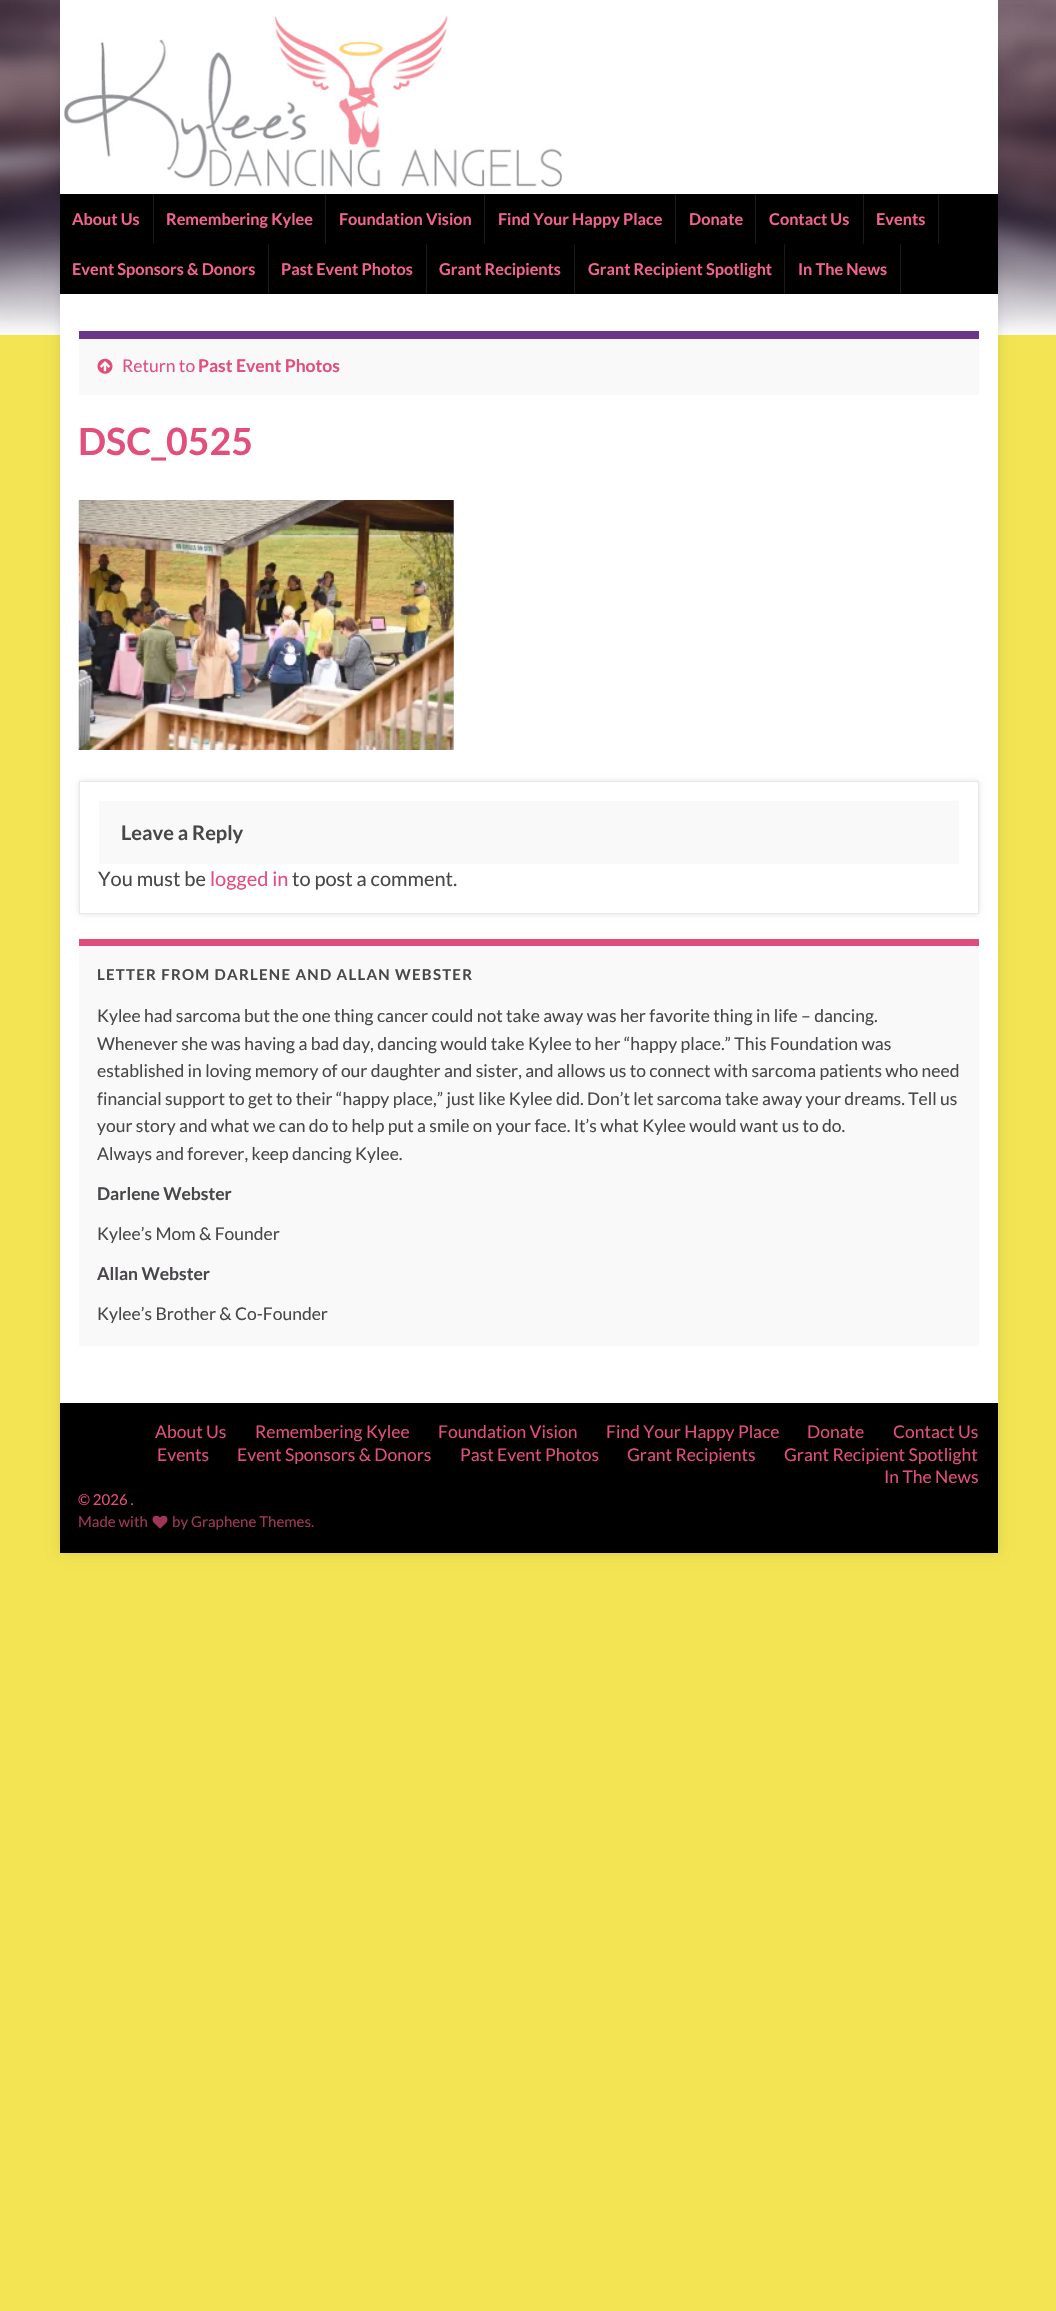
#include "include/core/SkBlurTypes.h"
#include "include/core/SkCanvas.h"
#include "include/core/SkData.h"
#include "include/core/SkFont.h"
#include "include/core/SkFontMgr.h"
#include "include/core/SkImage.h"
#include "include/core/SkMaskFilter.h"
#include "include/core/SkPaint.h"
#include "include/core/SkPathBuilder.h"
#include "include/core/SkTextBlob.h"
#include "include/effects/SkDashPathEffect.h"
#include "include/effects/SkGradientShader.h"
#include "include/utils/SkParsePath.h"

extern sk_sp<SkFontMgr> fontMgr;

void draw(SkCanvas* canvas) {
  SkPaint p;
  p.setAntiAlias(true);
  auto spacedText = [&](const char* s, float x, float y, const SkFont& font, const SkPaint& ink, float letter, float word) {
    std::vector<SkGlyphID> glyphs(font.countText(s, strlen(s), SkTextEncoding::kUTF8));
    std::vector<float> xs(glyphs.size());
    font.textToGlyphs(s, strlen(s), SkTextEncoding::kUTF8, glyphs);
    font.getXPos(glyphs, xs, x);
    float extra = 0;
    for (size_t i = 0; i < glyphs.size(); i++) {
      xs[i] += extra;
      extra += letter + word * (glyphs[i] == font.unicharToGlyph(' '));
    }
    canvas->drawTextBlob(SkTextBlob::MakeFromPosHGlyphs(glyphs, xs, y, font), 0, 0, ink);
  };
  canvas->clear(SkColorSetRGB(242, 228, 82));
  canvas->drawImageRect(SkImages::DeferredFromEncodedData(SkData::MakeFromFileName("images/1.png")), SkRect::MakeLTRB(0, 0, 1056, 335), SkSamplingOptions());
  p.setColor(SkColorSetARGB(26, 0, 0, 0));
  p.setMaskFilter(SkMaskFilter::MakeBlur(kNormal_SkBlurStyle, 6));
  canvas->drawRect(SkRect::MakeLTRB(60, 0, 998, 1553), p);
  p.setMaskFilter(nullptr);
  p.setColor(SK_ColorWHITE);
  canvas->drawRect(SkRect::MakeLTRB(60, 0, 998, 194), p);
  canvas->drawImageRect(SkImages::DeferredFromEncodedData(SkData::MakeFromFileName("images/2.png")), SkRect::MakeLTRB(64, 15, 562, 188), SkSamplingOptions());
  p.setColor(SK_ColorBLACK);
  canvas->drawRect(SkRect::MakeLTRB(60, 194, 998, 294), p);
  p.setColor(SkColorSetRGB(26, 26, 26));
  canvas->drawRect(SkRect::MakeLTRB(153, 194, 154, 244), p);
  canvas->drawRect(SkRect::MakeLTRB(325, 194, 326, 244), p);
  canvas->drawRect(SkRect::MakeLTRB(484, 194, 485, 244), p);
  canvas->drawRect(SkRect::MakeLTRB(675, 194, 676, 244), p);
  canvas->drawRect(SkRect::MakeLTRB(755, 194, 756, 244), p);
  canvas->drawRect(SkRect::MakeLTRB(863, 194, 864, 244), p);
  canvas->drawRect(SkRect::MakeLTRB(938, 194, 939, 244), p);
  canvas->drawRect(SkRect::MakeLTRB(268, 244, 269, 294), p);
  canvas->drawRect(SkRect::MakeLTRB(426, 244, 427, 294), p);
  canvas->drawRect(SkRect::MakeLTRB(574, 244, 575, 294), p);
  canvas->drawRect(SkRect::MakeLTRB(784, 244, 785, 294), p);
  canvas->drawRect(SkRect::MakeLTRB(900, 244, 901, 294), p);
  p.setColor(SK_ColorWHITE);
  canvas->drawRect(SkRect::MakeLTRB(60, 294, 998, 1403), p);
  p.setColor(SkColorSetRGB(249, 249, 249));
  canvas->drawRect(SkRect::MakeLTRB(79, 339, 979, 395), p);
  p.setColor(SkColorSetRGB(107, 53, 137));
  canvas->drawRect(SkRect::MakeLTRB(79, 331, 979, 339), p);
  canvas->drawImageRect(SkImages::DeferredFromEncodedData(SkData::MakeFromFileName("images/3.png")), SkRect::MakeLTRB(97, 358, 113, 374), SkSamplingOptions());
  canvas->drawImageRect(SkImages::DeferredFromEncodedData(SkData::MakeFromFileName("images/4.png")), SkRect::MakeLTRB(78, 500, 454, 750), SkSamplingOptions());
  p.setColor(SkColorSetARGB(26, 0, 0, 0));
  p.setMaskFilter(SkMaskFilter::MakeBlur(kNormal_SkBlurStyle, 3));
  canvas->drawRect(SkRect::MakeLTRB(79, 781, 979, 914), p);
  p.setMaskFilter(nullptr);
  p.setColor(SK_ColorWHITE);
  canvas->drawRect(SkRect::MakeLTRB(79.5f, 781.5f, 978.5f, 913.5f), p);
  p.setStyle(SkPaint::kStroke_Style);
  p.setStrokeWidth(1);
  p.setColor(SkColorSetRGB(233, 232, 227));
  canvas->drawRect(SkRect::MakeLTRB(79.5f, 781.5f, 978.5f, 913.5f), p);
  p.setStyle(SkPaint::kFill_Style);
  p.setColor(SkColorSetRGB(249, 249, 249));
  canvas->drawRect(SkRect::MakeLTRB(99, 801, 959, 864), p);
  canvas->drawRect(SkRect::MakeLTRB(79, 946, 979, 1346), p);
  p.setColor(SkColorSetRGB(224, 77, 122));
  canvas->drawRect(SkRect::MakeLTRB(79, 939, 979, 946), p);
  p.setColor(SK_ColorBLACK);
  canvas->drawRect(SkRect::MakeLTRB(60, 1403, 998, 1553), p);
  canvas->drawImageRect(SkImages::DeferredFromEncodedData(SkData::MakeFromFileName("images/5.png")), SkRect::MakeLTRB(152, 1515, 168, 1529), SkSamplingOptions());
  SkFont font1(fontMgr->matchFamilyStyle("Lato", SkFontStyle::Bold()), 16.25f);
  font1.setSubpixel(true);
  p.setColor(SkColorSetRGB(242, 100, 143));
  canvas->drawString("About Us", 72, 225, font1, p);
  canvas->drawString("Remembering Kylee", 166, 225, font1, p);
  canvas->drawString("Foundation Vision", 339, 225, font1, p);
  canvas->drawString("Find Your Happy Place", 498, 225, font1, p);
  canvas->drawString("Donate", 689, 225, font1, p);
  canvas->drawString("Contact Us", 769, 225, font1, p);
  canvas->drawString("Events", 876, 225, font1, p);
  canvas->drawString("Event Sponsors & Donors", 72, 275, font1, p);
  canvas->drawString("Past Event Photos", 281, 275, font1, p);
  canvas->drawString("Grant Recipients", 439, 275, font1, p);
  canvas->drawString("Grant Recipient Spotlight", 588, 275, font1, p);
  canvas->drawString("In The News", 798, 275, font1, p);
  SkFont font2(fontMgr->matchFamilyStyle("Lato", SkFontStyle::Normal()), 17.5f);
  font2.setSubpixel(true);
  p.setColor(SkColorSetRGB(226, 79, 124));
  canvas->drawString("Return to", 122, 372, font2, p);
  SkFont font3(fontMgr->matchFamilyStyle("Lato", SkFontStyle::Bold()), 17.5f);
  font3.setSubpixel(true);
  canvas->drawString("Past Event Photos", 198, 372, font3, p);
  SkFont font4(fontMgr->matchFamilyStyle("Lato", SkFontStyle::Bold()), 37.5f);
  font4.setSubpixel(true);
  canvas->drawString("DSC_0525", 78, 455, font4, p);
  SkFont font5(fontMgr->matchFamilyStyle("Lato", SkFontStyle::Bold()), 20);
  font5.setSubpixel(true);
  p.setColor(SkColorSetRGB(74, 71, 75));
  canvas->drawString("Leave a Reply", 121, 840, font5, p);
  SkFont font6(fontMgr->matchFamilyStyle("Lato", SkFontStyle::Normal()), 20);
  font6.setSubpixel(true);
  canvas->drawString("You must be", 98, 886, font6, p);
  p.setColor(SkColorSetRGB(226, 79, 124));
  canvas->drawString("logged in", 210, 886, font6, p);
  p.setColor(SkColorSetRGB(74, 71, 75));
  canvas->drawString("to post a comment.", 292, 886, font6, p);
  SkFont font7(fontMgr->matchFamilyStyle("Lato", SkFontStyle::Bold()), 15);
  font7.setSubpixel(true);
  spacedText("LETTER FROM DARLENE AND ALLAN WEBSTER", 97, 980, font7, p, 1.25f, 0);
  canvas->drawString("Kylee had sarcoma but the one thing cancer could not take away was her favorite thing in life – dancing.", 97, 1022, font2, p);
  canvas->drawString("Whenever she was having a bad day, dancing would take Kylee to her “happy place.” This Foundation was", 97, 1050, font2, p);
  canvas->drawString("established in loving memory of our daughter and sister, and allows us to connect with sarcoma patients who need", 97, 1077, font2, p);
  canvas->drawString("financial support to get to their “happy place,” just like Kylee did. Don’t let sarcoma take away your dreams. Tell us", 97, 1105, font2, p);
  canvas->drawString("your story and what we can do to help put a smile on your face. It’s what Kylee would want us to do.", 97, 1132, font2, p);
  canvas->drawString("Always and forever, keep dancing Kylee.", 97, 1160, font2, p);
  canvas->drawString("Darlene Webster", 97, 1200, font3, p);
  canvas->drawString("Kylee’s Mom & Founder", 97, 1240, font2, p);
  canvas->drawString("Allan Webster", 97, 1280, font3, p);
  canvas->drawString("Kylee’s Brother & Co-Founder", 97, 1320, font2, p);
  p.setColor(SkColorSetRGB(226, 79, 124));
  canvas->drawString("About Us", 155, 1438, font2, p);
  canvas->drawString("Remembering Kylee", 255, 1438, font2, p);
  canvas->drawString("Foundation Vision", 438, 1438, font2, p);
  canvas->drawString("Find Your Happy Place", 606, 1438, font2, p);
  canvas->drawString("Donate", 807, 1438, font2, p);
  canvas->drawString("Contact Us", 893, 1438, font2, p);
  canvas->drawString("Events", 157, 1461, font2, p);
  canvas->drawString("Event Sponsors & Donors", 237, 1461, font2, p);
  canvas->drawString("Past Event Photos", 460, 1461, font2, p);
  canvas->drawString("Grant Recipients", 627, 1461, font2, p);
  canvas->drawString("Grant Recipient Spotlight", 784, 1461, font2, p);
  canvas->drawString("In The News", 884, 1483, font2, p);
  SkFont font8(fontMgr->matchFamilyStyle("Lato", SkFontStyle::Normal()), 15);
  font8.setSubpixel(true);
  canvas->drawString("© 2026 .", 78, 1505, font8, p);
  p.setColor(SkColorSetRGB(158, 55, 87));
  canvas->drawString("Made with", 78, 1527, font8, p);
  canvas->drawString("by Graphene Themes.", 172, 1527, font8, p);
}
